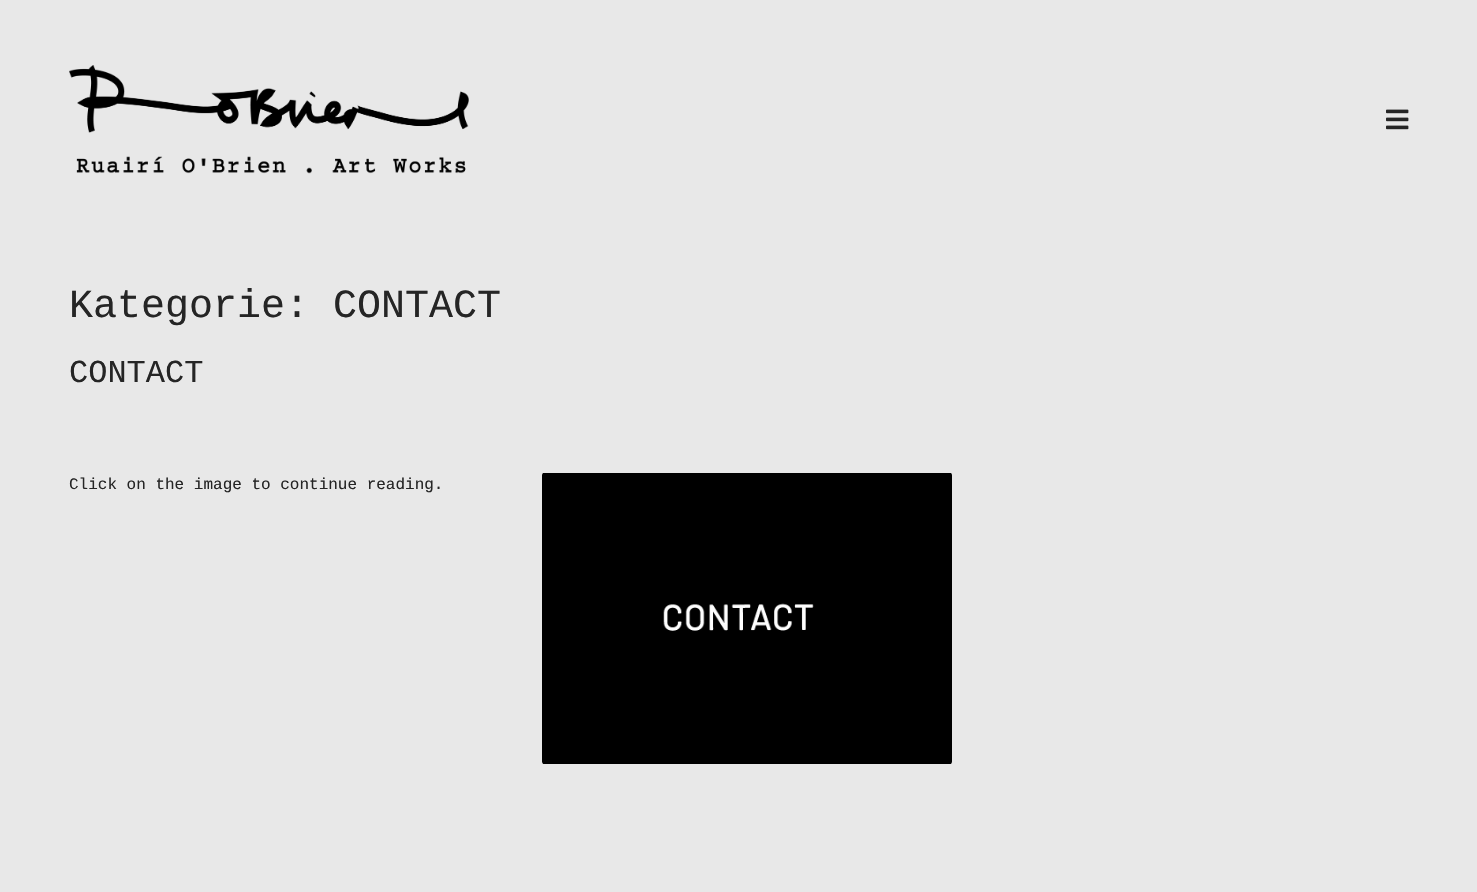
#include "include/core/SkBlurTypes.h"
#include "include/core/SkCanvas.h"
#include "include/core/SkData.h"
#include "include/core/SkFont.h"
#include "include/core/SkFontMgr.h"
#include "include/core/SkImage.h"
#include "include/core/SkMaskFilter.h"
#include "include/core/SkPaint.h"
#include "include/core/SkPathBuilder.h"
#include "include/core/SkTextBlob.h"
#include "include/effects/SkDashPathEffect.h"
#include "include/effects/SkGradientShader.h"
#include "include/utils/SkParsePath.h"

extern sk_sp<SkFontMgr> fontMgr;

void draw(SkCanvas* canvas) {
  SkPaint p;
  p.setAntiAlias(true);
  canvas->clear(SkColorSetRGB(232, 232, 232));
  canvas->drawImageRect(SkImages::DeferredFromEncodedData(SkData::MakeFromFileName("images/1.png")), SkRect::MakeLTRB(69, 65, 469, 174), SkSamplingOptions());
  canvas->drawImageRect(SkImages::DeferredFromEncodedData(SkData::MakeFromFileName("images/2.png")), SkRect::MakeLTRB(1386, 109, 1409, 130), SkSamplingOptions());
  canvas->drawImageRect(SkImages::DeferredFromEncodedData(SkData::MakeFromFileName("images/3.png")), SkRect::MakeLTRB(542, 473, 952, 764), SkSamplingOptions());
  SkFont font1(fontMgr->matchFamilyStyle("Liberation Mono", SkFontStyle::Normal()), 40);
  font1.setSubpixel(true);
  p.setColor(SkColorSetRGB(37, 37, 37));
  canvas->drawString("Kategorie: CONTACT", 69, 317, font1, p);
  SkFont font2(fontMgr->matchFamilyStyle("Liberation Mono", SkFontStyle::Normal()), 32);
  font2.setSubpixel(true);
  canvas->drawString("CONTACT", 69, 382, font2, p);
  SkFont font3(fontMgr->matchFamilyStyle("Liberation Mono", SkFontStyle::Normal()), 16);
  font3.setSubpixel(true);
  canvas->drawString("Click on the image to continue reading.", 69, 489, font3, p);
}
